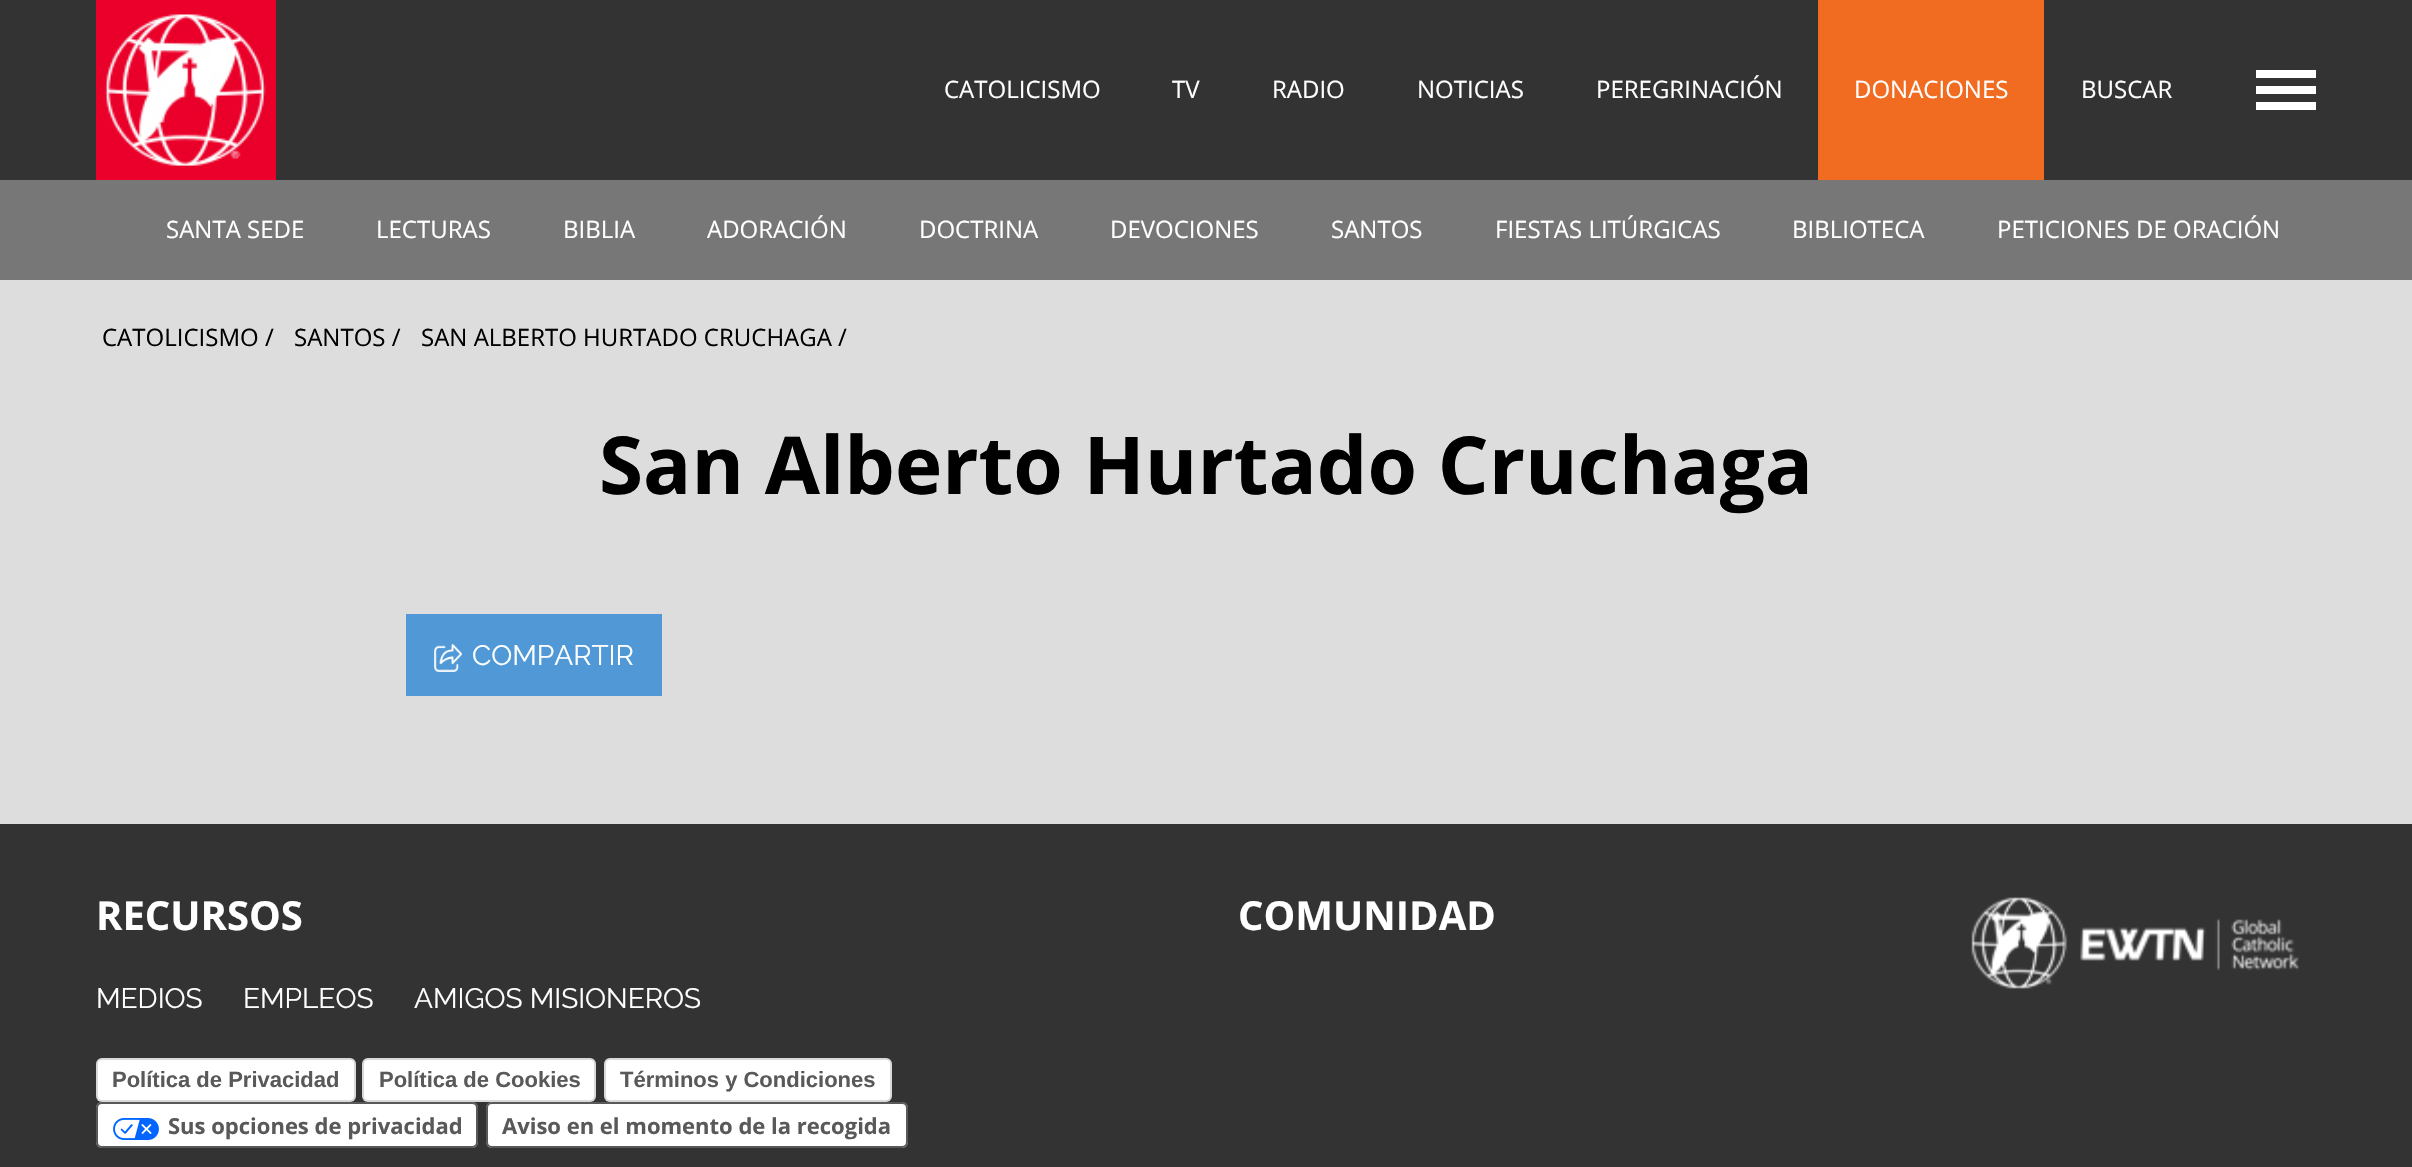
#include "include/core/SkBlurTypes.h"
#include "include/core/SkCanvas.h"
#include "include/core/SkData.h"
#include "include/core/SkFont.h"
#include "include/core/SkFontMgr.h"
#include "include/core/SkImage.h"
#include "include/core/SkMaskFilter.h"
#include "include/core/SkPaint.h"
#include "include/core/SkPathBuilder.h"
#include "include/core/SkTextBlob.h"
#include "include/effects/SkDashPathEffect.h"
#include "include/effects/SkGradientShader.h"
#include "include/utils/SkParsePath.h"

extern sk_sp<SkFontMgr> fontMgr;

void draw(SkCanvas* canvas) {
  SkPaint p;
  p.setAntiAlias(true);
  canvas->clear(SkColorSetRGB(221, 221, 221));
  p.setColor(SkColorSetRGB(51, 51, 51));
  canvas->drawRect(SkRect::MakeLTRB(0, 0, 2412, 180), p);
  canvas->drawImageRect(SkImages::DeferredFromEncodedData(SkData::MakeFromFileName("images/1.png")), SkRect::MakeLTRB(96, 0, 276, 180), SkSamplingOptions());
  p.setColor(SkColorSetRGB(241, 108, 32));
  canvas->drawRect(SkRect::MakeLTRB(1818, 0, 2044, 180), p);
  p.setColor(SK_ColorWHITE);
  canvas->drawRect(SkRect::MakeLTRB(2256, 70, 2316, 78), p);
  canvas->drawRect(SkRect::MakeLTRB(2256, 86, 2316, 94), p);
  canvas->drawRect(SkRect::MakeLTRB(2256, 102, 2316, 110), p);
  p.setColor(SkColorSetRGB(119, 119, 119));
  canvas->drawRect(SkRect::MakeLTRB(0, 180, 2412, 280), p);
  p.setColor(SkColorSetRGB(80, 153, 214));
  canvas->drawRect(SkRect::MakeLTRB(406, 614, 662, 696), p);
  canvas->drawImageRect(SkImages::DeferredFromEncodedData(SkData::MakeFromFileName("images/2.png")), SkRect::MakeLTRB(434, 644, 462, 672), SkSamplingOptions());
  p.setColor(SkColorSetRGB(51, 51, 51));
  canvas->drawRect(SkRect::MakeLTRB(0, 824, 2412, 1167), p);
  p.setColor(SK_ColorWHITE);
  canvas->drawRoundRect(SkRect::MakeLTRB(96, 1058, 356, 1102), 6, 6, p);
  p.setStyle(SkPaint::kStroke_Style);
  p.setStrokeWidth(2);
  p.setColor(SkColorSetARGB(38, 0, 0, 0));
  canvas->drawRoundRect(SkRect::MakeLTRB(97, 1059, 355, 1101), 5, 5, p);
  p.setStyle(SkPaint::kFill_Style);
  p.setColor(SK_ColorWHITE);
  canvas->drawRoundRect(SkRect::MakeLTRB(362, 1058, 596, 1102), 6, 6, p);
  p.setStyle(SkPaint::kStroke_Style);
  p.setColor(SkColorSetARGB(38, 0, 0, 0));
  canvas->drawRoundRect(SkRect::MakeLTRB(363, 1059, 595, 1101), 5, 5, p);
  p.setStyle(SkPaint::kFill_Style);
  p.setColor(SK_ColorWHITE);
  canvas->drawRoundRect(SkRect::MakeLTRB(604, 1058, 892, 1102), 6, 6, p);
  p.setStyle(SkPaint::kStroke_Style);
  p.setColor(SkColorSetARGB(38, 0, 0, 0));
  canvas->drawRoundRect(SkRect::MakeLTRB(605, 1059, 891, 1101), 5, 5, p);
  p.setStyle(SkPaint::kFill_Style);
  p.setColor(SK_ColorWHITE);
  canvas->drawRoundRect(SkRect::MakeLTRB(96, 1102, 478, 1148), 6, 6, p);
  p.setStyle(SkPaint::kStroke_Style);
  p.setColor(SkColorSetARGB(166, 0, 0, 0));
  canvas->drawRoundRect(SkRect::MakeLTRB(97, 1103, 477, 1147), 5, 5, p);
  canvas->drawImageRect(SkImages::DeferredFromEncodedData(SkData::MakeFromFileName("images/3.png")), SkRect::MakeLTRB(113, 1118, 159, 1140), SkSamplingOptions());
  p.setStyle(SkPaint::kFill_Style);
  p.setColor(SK_ColorWHITE);
  canvas->drawRoundRect(SkRect::MakeLTRB(486, 1102, 908, 1148), 6, 6, p);
  p.setStyle(SkPaint::kStroke_Style);
  p.setColor(SkColorSetARGB(166, 0, 0, 0));
  canvas->drawRoundRect(SkRect::MakeLTRB(487, 1103, 907, 1147), 5, 5, p);
  canvas->drawImageRect(SkImages::DeferredFromEncodedData(SkData::MakeFromFileName("images/4.png")), SkRect::MakeLTRB(1971, 897, 2299, 989), SkSamplingOptions());
  SkFont font1(fontMgr->matchFamilyStyle("Open Sans", SkFontStyle::Normal()), 24);
  font1.setSubpixel(true);
  p.setStyle(SkPaint::kFill_Style);
  p.setColor(SK_ColorWHITE);
  canvas->drawString("CATOLICISMO", 944, 98, font1, p);
  canvas->drawString("TV", 1172, 98, font1, p);
  canvas->drawString("RADIO", 1272, 98, font1, p);
  canvas->drawString("NOTICIAS", 1417, 98, font1, p);
  canvas->drawString("PEREGRINACIÓN", 1596, 98, font1, p);
  canvas->drawString("DONACIONES", 1854, 98, font1, p);
  canvas->drawString("BUSCAR", 2081, 98, font1, p);
  canvas->drawString("SANTA SEDE", 166, 238, font1, p);
  canvas->drawString("LECTURAS", 376, 238, font1, p);
  canvas->drawString("BIBLIA", 563, 238, font1, p);
  canvas->drawString("ADORACIÓN", 707, 238, font1, p);
  canvas->drawString("DOCTRINA", 919, 238, font1, p);
  canvas->drawString("DEVOCIONES", 1110, 238, font1, p);
  canvas->drawString("SANTOS", 1331, 238, font1, p);
  canvas->drawString("FIESTAS LITÚRGICAS", 1495, 238, font1, p);
  canvas->drawString("BIBLIOTECA", 1792, 238, font1, p);
  canvas->drawString("PETICIONES DE ORACIÓN", 1997, 238, font1, p);
  p.setColor(SK_ColorBLACK);
  canvas->drawString("CATOLICISMO /", 102, 346, font1, p);
  canvas->drawString("SANTOS /", 294, 346, font1, p);
  canvas->drawString("SAN ALBERTO HURTADO CRUCHAGA /", 421, 346, font1, p);
  SkFont font2(fontMgr->matchFamilyStyle("Open Sans", SkFontStyle::Bold()), 80);
  font2.setSubpixel(true);
  canvas->drawString("San Alberto Hurtado Cruchaga", 599, 494, font2, p);
  SkFont font3(fontMgr->matchFamilyStyle("Raleway", SkFontStyle::Normal()), 28);
  font3.setSubpixel(true);
  p.setColor(SK_ColorWHITE);
  canvas->drawString("COMPARTIR", 472, 665, font3, p);
  SkFont font4(fontMgr->matchFamilyStyle("Open Sans", SkFontStyle::Bold()), 40);
  font4.setSubpixel(true);
  canvas->drawString("RECURSOS", 96, 930, font4, p);
  canvas->drawString("MEDIOS", 96, 1008, font3, p);
  canvas->drawString("EMPLEOS", 243, 1008, font3, p);
  canvas->drawString("AMIGOS MISIONEROS", 414, 1008, font3, p);
  SkFont font5(fontMgr->matchFamilyStyle("Liberation Sans", SkFontStyle::Bold()), 22);
  font5.setSubpixel(true);
  p.setColor(SkColorSetRGB(89, 89, 89));
  canvas->drawString("Política de Privacidad", 112, 1087, font5, p);
  canvas->drawString("Política de Cookies", 379, 1087, font5, p);
  canvas->drawString("Términos y Condiciones", 620, 1087, font5, p);
  SkFont font6(fontMgr->matchFamilyStyle("Open Sans", SkFontStyle::Bold()), 22);
  font6.setSubpixel(true);
  canvas->drawString("Sus opciones de privacidad", 168, 1134, font6, p);
  canvas->drawString("Aviso en el momento de la recogida", 502, 1134, font6, p);
  p.setColor(SK_ColorWHITE);
  canvas->drawString("COMUNIDAD", 1238, 930, font4, p);
}
